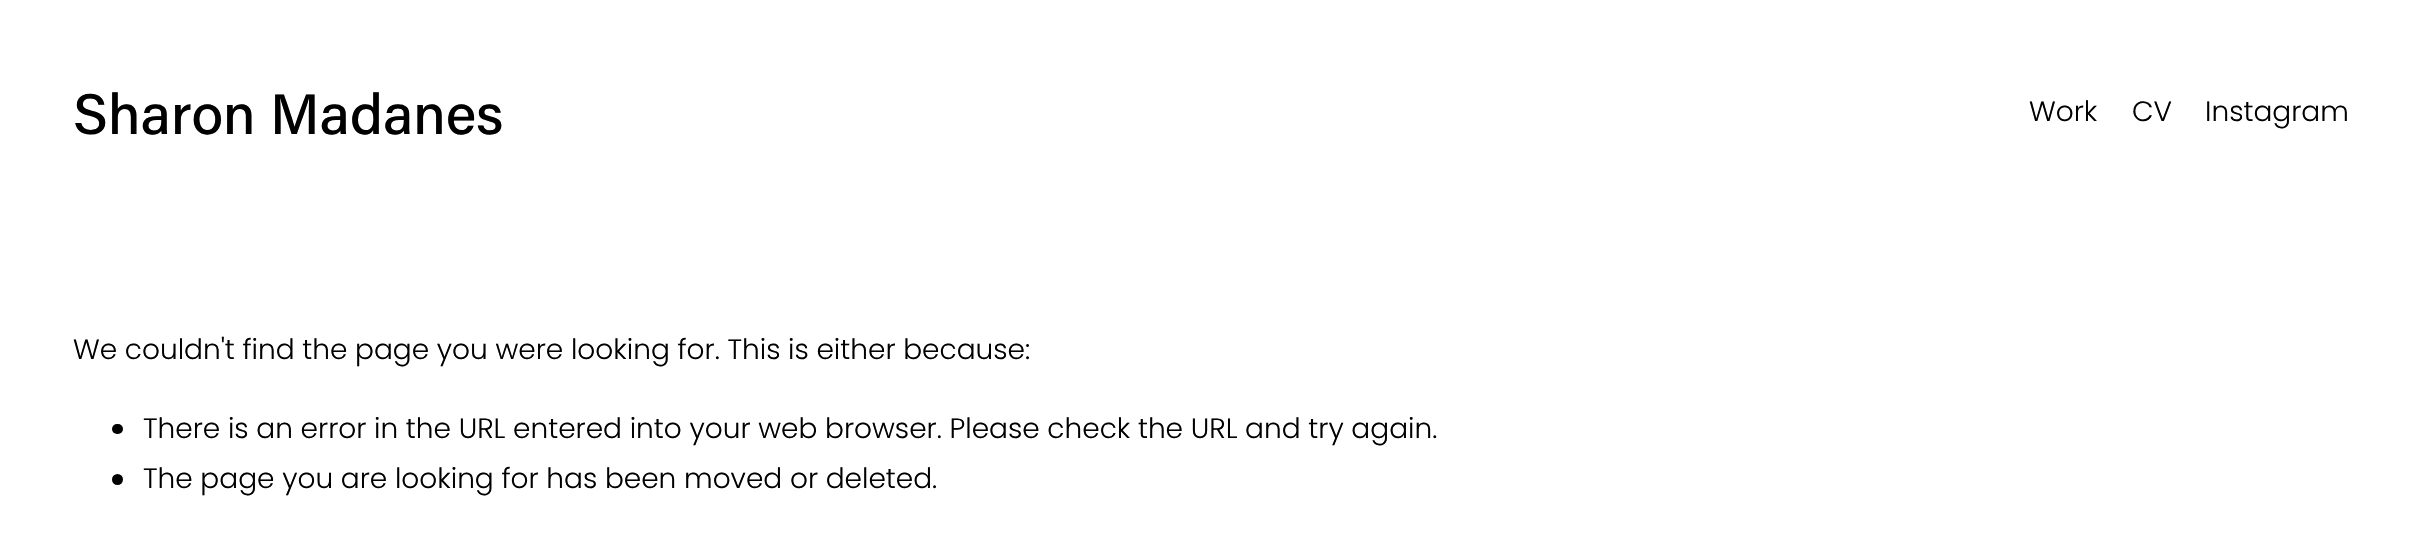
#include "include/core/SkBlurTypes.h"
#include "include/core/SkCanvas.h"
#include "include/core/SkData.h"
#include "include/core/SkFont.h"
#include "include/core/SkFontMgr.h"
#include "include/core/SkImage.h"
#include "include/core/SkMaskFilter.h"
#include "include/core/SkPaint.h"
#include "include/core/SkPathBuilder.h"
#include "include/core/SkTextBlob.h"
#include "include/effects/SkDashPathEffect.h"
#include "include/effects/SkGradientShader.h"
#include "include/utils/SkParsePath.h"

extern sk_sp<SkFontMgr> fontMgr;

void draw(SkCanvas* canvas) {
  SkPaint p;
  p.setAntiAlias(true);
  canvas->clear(SK_ColorWHITE);
  p.setColor(SK_ColorBLACK);
  canvas->drawRoundRect(SkRect::MakeLTRB(112, 424, 123, 434), 5, 5, p);
  canvas->drawCircle(117.5f, 479.5f, 5.5f, p);
  SkFont font1(fontMgr->matchFamilyStyle("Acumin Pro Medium", SkFontStyle(500, SkFontStyle::kNormal_Width, SkFontStyle::kUpright_Slant)), 57);
  font1.setSubpixel(true);
  canvas->drawString("Sharon Madanes", 73, 134, font1, p);
  SkFont font2(fontMgr->matchFamilyStyle("Poppins", SkFontStyle(300, SkFontStyle::kNormal_Width, SkFontStyle::kUpright_Slant)), 28);
  font2.setSubpixel(true);
  canvas->drawString("Work", 2029, 121, font2, p);
  canvas->drawString("CV", 2132, 121, font2, p);
  canvas->drawString("Instagram", 2205, 121, font2, p);
  canvas->drawString("We couldn't find the page you were looking for. This is either because:", 73, 359, font2, p);
  canvas->drawString("There is an error in the URL entered into your web browser. Please check the URL and try again.", 143, 438, font2, p);
  canvas->drawString("The page you are looking for has been moved or deleted.", 143, 488, font2, p);
}
